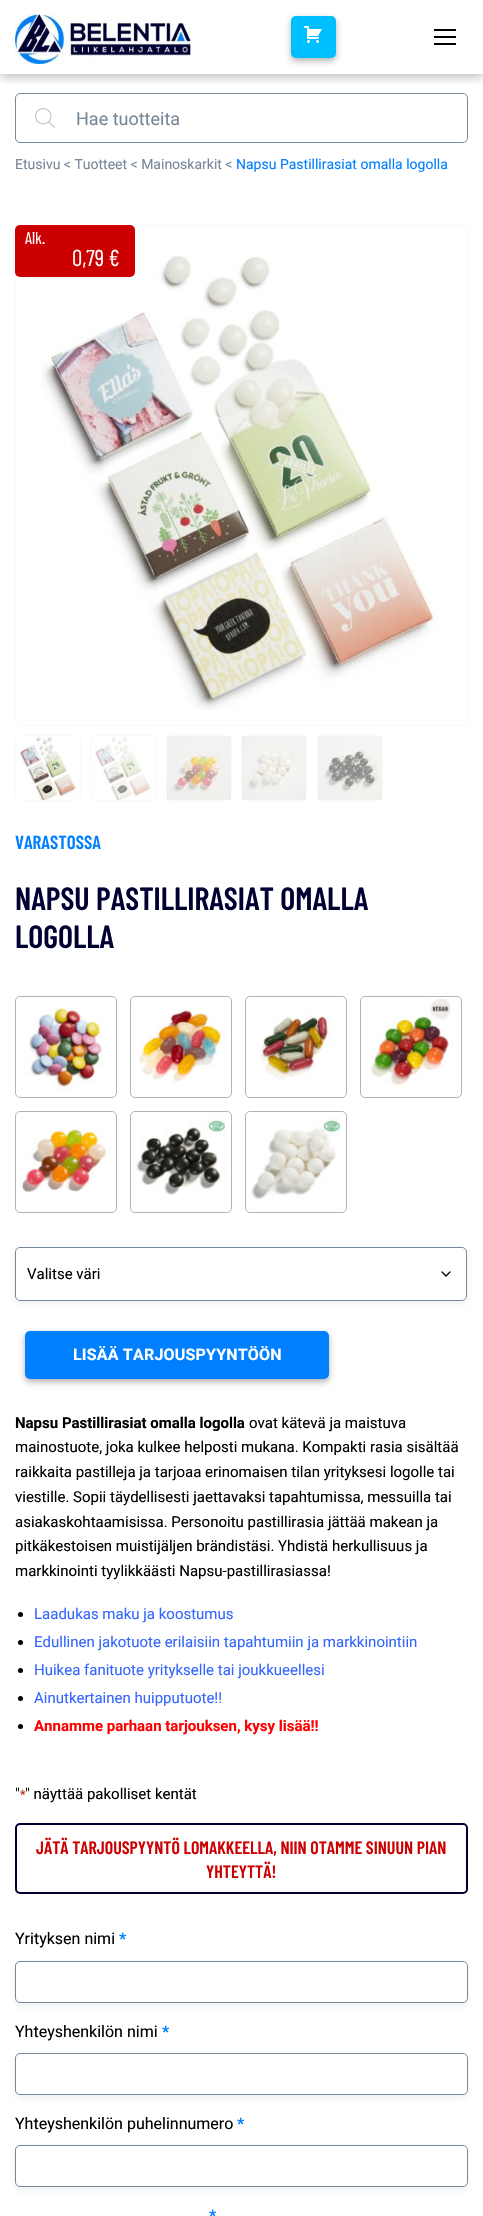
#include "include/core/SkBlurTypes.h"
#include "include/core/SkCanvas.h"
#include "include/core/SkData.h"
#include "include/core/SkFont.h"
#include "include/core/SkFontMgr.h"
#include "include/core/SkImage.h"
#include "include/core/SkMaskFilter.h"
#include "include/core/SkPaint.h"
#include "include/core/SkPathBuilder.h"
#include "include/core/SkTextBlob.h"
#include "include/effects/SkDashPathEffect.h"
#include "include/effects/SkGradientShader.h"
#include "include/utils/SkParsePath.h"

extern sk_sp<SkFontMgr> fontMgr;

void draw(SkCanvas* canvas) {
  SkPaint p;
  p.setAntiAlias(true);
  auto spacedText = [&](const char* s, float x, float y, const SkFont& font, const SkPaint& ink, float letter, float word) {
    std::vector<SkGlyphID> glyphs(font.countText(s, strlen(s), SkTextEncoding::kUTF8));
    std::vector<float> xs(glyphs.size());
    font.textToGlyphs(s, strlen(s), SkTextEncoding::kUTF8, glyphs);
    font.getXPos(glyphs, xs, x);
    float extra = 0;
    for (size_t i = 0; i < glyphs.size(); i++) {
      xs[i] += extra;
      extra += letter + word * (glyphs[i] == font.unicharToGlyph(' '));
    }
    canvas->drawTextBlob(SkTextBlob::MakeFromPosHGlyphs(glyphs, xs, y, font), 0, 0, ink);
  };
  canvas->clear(SK_ColorWHITE);
  canvas->save();
  canvas->clipRect(SkRect::MakeLTRB(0, 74, 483, 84));
  p.setColor(SkColorSetARGB(66, 0, 0, 0));
  p.setMaskFilter(SkMaskFilter::MakeBlur(kNormal_SkBlurStyle, 5));
  canvas->drawRect(SkRect::MakeLTRB(0, 3, 483, 77), p);
  p.setMaskFilter(nullptr);
  canvas->restore();
  canvas->drawImageRect(SkImages::DeferredFromEncodedData(SkData::MakeFromFileName("images/1.png")), SkRect::MakeLTRB(15, 14, 191, 64), SkSamplingOptions());
  p.setColor(SkColorSetARGB(77, 0, 0, 0));
  p.setMaskFilter(SkMaskFilter::MakeBlur(kNormal_SkBlurStyle, 3));
  canvas->drawRoundRect(SkRect::MakeLTRB(291, 19, 336, 61), 5, 5, p);
  p.setMaskFilter(nullptr);
  p.setColor(SkColorSetRGB(0, 191, 255));
  canvas->drawRoundRect(SkRect::MakeLTRB(291, 16, 336, 58), 5, 5, p);
  canvas->drawImageRect(SkImages::DeferredFromEncodedData(SkData::MakeFromFileName("images/2.png")), SkRect::MakeLTRB(304, 26, 322, 43), SkSamplingOptions());
  p.setColor(SK_ColorBLACK);
  canvas->drawRect(SkRect::MakeLTRB(434, 29, 456, 31), p);
  canvas->drawRect(SkRect::MakeLTRB(434, 36, 456, 38), p);
  canvas->drawRect(SkRect::MakeLTRB(434, 43, 456, 45), p);
  p.setStyle(SkPaint::kStroke_Style);
  p.setStrokeWidth(1);
  p.setColor(SkColorSetRGB(119, 136, 153));
  canvas->drawRoundRect(SkRect::MakeLTRB(15.5f, 93.5f, 467.5f, 142.5f), 4.5f, 4.5f, p);
  canvas->drawImageRect(SkImages::DeferredFromEncodedData(SkData::MakeFromFileName("images/3.png")), SkRect::MakeLTRB(35, 108, 55, 128), SkSamplingOptions());
  p.setColor(SkColorSetRGB(249, 249, 249));
  canvas->drawRoundRect(SkRect::MakeLTRB(15.5f, 225.5f, 467.5f, 725.5f), 4.5f, 4.5f, p);
  canvas->drawImageRect(SkImages::DeferredFromEncodedData(SkData::MakeFromFileName("images/4.png")), SkRect::MakeLTRB(41, 255, 437, 710), SkSamplingOptions());
  p.setStyle(SkPaint::kFill_Style);
  p.setColor(SkColorSetRGB(204, 0, 0));
  canvas->drawRoundRect(SkRect::MakeLTRB(15, 225, 135, 277), 5, 5, p);
  p.setStyle(SkPaint::kStroke_Style);
  p.setColor(SkColorSetRGB(249, 249, 249));
  canvas->drawRoundRect(SkRect::MakeLTRB(15.5f, 735.5f, 80.5f, 800.5f), 4.5f, 4.5f, p);
  canvas->drawImageRect(SkImages::DeferredFromEncodedData(SkData::MakeFromFileName("images/5.png")), SkRect::MakeLTRB(16, 736, 80, 800), SkSamplingOptions());
  canvas->drawRoundRect(SkRect::MakeLTRB(90.5f, 735.5f, 155.5f, 800.5f), 4.5f, 4.5f, p);
  canvas->drawImageRect(SkImages::DeferredFromEncodedData(SkData::MakeFromFileName("images/6.png")), SkRect::MakeLTRB(95, 736, 152, 800), SkSamplingOptions());
  canvas->drawRoundRect(SkRect::MakeLTRB(166.5f, 735.5f, 231.5f, 800.5f), 4.5f, 4.5f, p);
  canvas->drawImageRect(SkImages::DeferredFromEncodedData(SkData::MakeFromFileName("images/7.png")), SkRect::MakeLTRB(167, 736, 231, 800), SkSamplingOptions());
  canvas->drawRoundRect(SkRect::MakeLTRB(241.5f, 735.5f, 306.5f, 800.5f), 4.5f, 4.5f, p);
  canvas->drawImageRect(SkImages::DeferredFromEncodedData(SkData::MakeFromFileName("images/8.png")), SkRect::MakeLTRB(242, 736, 306, 800), SkSamplingOptions());
  canvas->drawRoundRect(SkRect::MakeLTRB(317.5f, 735.5f, 382.5f, 800.5f), 4.5f, 4.5f, p);
  canvas->drawImageRect(SkImages::DeferredFromEncodedData(SkData::MakeFromFileName("images/9.png")), SkRect::MakeLTRB(318, 736, 382, 800), SkSamplingOptions());
  p.setColor(SkColorSetRGB(180, 180, 180));
  canvas->drawRoundRect(SkRect::MakeLTRB(15.5f, 996.5f, 116.5f, 1097.5f), 4.5f, 4.5f, p);
  canvas->drawImageRect(SkImages::DeferredFromEncodedData(SkData::MakeFromFileName("images/10.png")), SkRect::MakeLTRB(26, 1006, 103, 1091), SkSamplingOptions());
  canvas->drawRoundRect(SkRect::MakeLTRB(130.5f, 996.5f, 231.5f, 1097.5f), 4.5f, 4.5f, p);
  canvas->drawImageRect(SkImages::DeferredFromEncodedData(SkData::MakeFromFileName("images/11.png")), SkRect::MakeLTRB(138, 1007, 225, 1082), SkSamplingOptions());
  canvas->drawRoundRect(SkRect::MakeLTRB(245.5f, 996.5f, 346.5f, 1097.5f), 4.5f, 4.5f, p);
  canvas->drawImageRect(SkImages::DeferredFromEncodedData(SkData::MakeFromFileName("images/12.png")), SkRect::MakeLTRB(256, 1014, 332, 1080), SkSamplingOptions());
  canvas->drawRoundRect(SkRect::MakeLTRB(360.5f, 996.5f, 461.5f, 1097.5f), 4.5f, 4.5f, p);
  canvas->drawImageRect(SkImages::DeferredFromEncodedData(SkData::MakeFromFileName("images/13.png")), SkRect::MakeLTRB(370, 999, 455, 1086), SkSamplingOptions());
  canvas->drawRoundRect(SkRect::MakeLTRB(15.5f, 1111.5f, 116.5f, 1212.5f), 4.5f, 4.5f, p);
  canvas->drawImageRect(SkImages::DeferredFromEncodedData(SkData::MakeFromFileName("images/14.png")), SkRect::MakeLTRB(18, 1129, 110, 1193), SkSamplingOptions());
  canvas->drawRoundRect(SkRect::MakeLTRB(130.5f, 1111.5f, 231.5f, 1212.5f), 4.5f, 4.5f, p);
  canvas->drawImageRect(SkImages::DeferredFromEncodedData(SkData::MakeFromFileName("images/15.png")), SkRect::MakeLTRB(136, 1114, 226, 1196), SkSamplingOptions());
  canvas->drawRoundRect(SkRect::MakeLTRB(245.5f, 1111.5f, 346.5f, 1212.5f), 4.5f, 4.5f, p);
  canvas->drawImageRect(SkImages::DeferredFromEncodedData(SkData::MakeFromFileName("images/16.png")), SkRect::MakeLTRB(251, 1114, 341, 1200), SkSamplingOptions());
  canvas->save();
  canvas->clipPath(SkPathBuilder(SkPathFillType::kEvenOdd).moveTo(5, 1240).lineTo(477, 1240).lineTo(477, 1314).lineTo(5, 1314).close().moveTo(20, 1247).lineTo(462, 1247).cubicTo(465, 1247, 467, 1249, 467, 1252).lineTo(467, 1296).cubicTo(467, 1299, 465, 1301, 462, 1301).lineTo(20, 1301).cubicTo(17, 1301, 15, 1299, 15, 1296).lineTo(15, 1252).cubicTo(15, 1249, 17, 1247, 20, 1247).close().detach(), true);
  p.setStyle(SkPaint::kFill_Style);
  p.setColor(SkColorSetARGB(41, 153, 153, 153));
  p.setMaskFilter(SkMaskFilter::MakeBlur(kNormal_SkBlurStyle, 3));
  canvas->drawRoundRect(SkRect::MakeLTRB(15, 1250, 467, 1304), 5, 5, p);
  p.setMaskFilter(nullptr);
  canvas->restore();
  p.setStyle(SkPaint::kStroke_Style);
  p.setStrokeWidth(1.3f);
  p.setStrokeCap(SkPaint::kRound_Cap);
  p.setStrokeJoin(SkPaint::kRound_Join);
  p.setColor(SK_ColorBLACK);
  canvas->drawPath(SkPathBuilder().moveTo(442, 1272).lineTo(446, 1276).lineTo(450, 1272).detach(), p);
  p.setStrokeWidth(1);
  p.setStrokeCap(SkPaint::kButt_Cap);
  p.setStrokeJoin(SkPaint::kMiter_Join);
  p.setColor(SkColorSetRGB(119, 136, 153));
  canvas->drawRoundRect(SkRect::MakeLTRB(15.5f, 1247.5f, 466.5f, 1300.5f), 4.5f, 4.5f, p);
  p.setStyle(SkPaint::kFill_Style);
  p.setColor(SkColorSetARGB(77, 0, 0, 0));
  p.setMaskFilter(SkMaskFilter::MakeBlur(kNormal_SkBlurStyle, 3));
  canvas->drawRoundRect(SkRect::MakeLTRB(25, 1334, 329, 1382), 5, 5, p);
  p.setMaskFilter(nullptr);
  p.setColor(SkColorSetRGB(0, 127, 255));
  canvas->drawRoundRect(SkRect::MakeLTRB(25, 1331, 329, 1379), 5, 5, p);
  p.setColor(SK_ColorBLACK);
  canvas->drawCircle(20.5f, 1614.5f, 2.5f, p);
  canvas->drawCircle(20.5f, 1642.5f, 2.5f, p);
  canvas->drawCircle(20.5f, 1670.5f, 2.5f, p);
  canvas->drawCircle(20.5f, 1698.5f, 2.5f, p);
  canvas->drawCircle(20.5f, 1726.5f, 2.5f, p);
  p.setStyle(SkPaint::kStroke_Style);
  p.setStrokeWidth(2);
  p.setColor(SkColorSetRGB(0, 0, 51));
  canvas->drawRoundRect(SkRect::MakeLTRB(16, 1824, 467, 1893), 4, 4, p);
  p.setStyle(SkPaint::kFill_Style);
  p.setColor(SkColorSetARGB(41, 153, 153, 153));
  p.setMaskFilter(SkMaskFilter::MakeBlur(kNormal_SkBlurStyle, 3));
  canvas->drawRoundRect(SkRect::MakeLTRB(15, 1964, 468, 2006), 5, 5, p);
  p.setMaskFilter(nullptr);
  p.setColor(SK_ColorWHITE);
  canvas->drawRoundRect(SkRect::MakeLTRB(15.5f, 1961.5f, 467.5f, 2002.5f), 4.5f, 4.5f, p);
  p.setStyle(SkPaint::kStroke_Style);
  p.setStrokeWidth(1);
  p.setColor(SkColorSetRGB(119, 136, 153));
  canvas->drawRoundRect(SkRect::MakeLTRB(15.5f, 1961.5f, 467.5f, 2002.5f), 4.5f, 4.5f, p);
  p.setStyle(SkPaint::kFill_Style);
  p.setColor(SkColorSetARGB(41, 153, 153, 153));
  p.setMaskFilter(SkMaskFilter::MakeBlur(kNormal_SkBlurStyle, 3));
  canvas->drawRoundRect(SkRect::MakeLTRB(15, 2056, 468, 2098), 5, 5, p);
  p.setMaskFilter(nullptr);
  p.setColor(SK_ColorWHITE);
  canvas->drawRoundRect(SkRect::MakeLTRB(15.5f, 2053.5f, 467.5f, 2094.5f), 4.5f, 4.5f, p);
  p.setStyle(SkPaint::kStroke_Style);
  p.setColor(SkColorSetRGB(119, 136, 153));
  canvas->drawRoundRect(SkRect::MakeLTRB(15.5f, 2053.5f, 467.5f, 2094.5f), 4.5f, 4.5f, p);
  p.setStyle(SkPaint::kFill_Style);
  p.setColor(SkColorSetARGB(41, 153, 153, 153));
  p.setMaskFilter(SkMaskFilter::MakeBlur(kNormal_SkBlurStyle, 3));
  canvas->drawRoundRect(SkRect::MakeLTRB(15, 2148, 468, 2190), 5, 5, p);
  p.setMaskFilter(nullptr);
  p.setColor(SK_ColorWHITE);
  canvas->drawRoundRect(SkRect::MakeLTRB(15.5f, 2145.5f, 467.5f, 2186.5f), 4.5f, 4.5f, p);
  p.setStyle(SkPaint::kStroke_Style);
  p.setColor(SkColorSetRGB(119, 136, 153));
  canvas->drawRoundRect(SkRect::MakeLTRB(15.5f, 2145.5f, 467.5f, 2186.5f), 4.5f, 4.5f, p);
  SkFont font1(fontMgr->matchFamilyStyle("Roboto", SkFontStyle::Normal()), 18);
  font1.setSubpixel(true);
  p.setStyle(SkPaint::kFill_Style);
  canvas->drawString("Hae tuotteita", 76, 125, font1, p);
  SkFont font2(fontMgr->matchFamilyStyle("Roboto", SkFontStyle::Normal()), 14);
  font2.setSubpixel(true);
  canvas->drawString("Etusivu < Tuotteet < Mainoskarkit <", 15, 169, font2, p);
  p.setColor(SkColorSetRGB(0, 127, 255));
  canvas->drawString("Napsu Pastillirasiat omalla logolla", 236, 169, font2, p);
  SkFont font3(fontMgr->matchFamilyStyle("Barlow Condensed", SkFontStyle::Normal()), 17);
  font3.setSubpixel(true);
  p.setColor(SK_ColorWHITE);
  canvas->drawString("Alk.", 25, 244, font3, p);
  SkFont font4(fontMgr->matchFamilyStyle("Barlow Condensed", SkFontStyle::Normal()), 23);
  font4.setSubpixel(true);
  canvas->drawString("0,79 €", 72, 266, font4, p);
  SkFont font5(fontMgr->matchFamilyStyle("Barlow Condensed", SkFontStyle(600, SkFontStyle::kNormal_Width, SkFontStyle::kUpright_Slant)), 19);
  font5.setSubpixel(true);
  p.setColor(SkColorSetRGB(0, 127, 255));
  canvas->drawString("VARASTOSSA", 15, 849, font5, p);
  SkFont font6(fontMgr->matchFamilyStyle("Barlow Condensed", SkFontStyle(600, SkFontStyle::kNormal_Width, SkFontStyle::kUpright_Slant)), 32);
  font6.setSubpixel(true);
  p.setColor(SkColorSetRGB(0, 0, 51));
  canvas->drawString("NAPSU PASTILLIRASIAT OMALLA", 15, 910, font6, p);
  canvas->drawString("LOGOLLA", 15, 948, font6, p);
  SkFont font7(fontMgr->matchFamilyStyle("Roboto", SkFontStyle::Normal()), 15);
  font7.setSubpixel(true);
  p.setColor(SK_ColorBLACK);
  canvas->drawString("Valitse väri", 27, 1279, font7, p);
  SkFont font8(fontMgr->matchFamilyStyle("Roboto", SkFontStyle::Bold()), 16);
  font8.setSubpixel(true);
  p.setColor(SK_ColorWHITE);
  spacedText("LISÄÄ TARJOUSPYYNTÖÖN", 73, 1360, font8, p, 0.2f, 0);
  SkFont font9(fontMgr->matchFamilyStyle("Roboto", SkFontStyle::Bold()), 15);
  font9.setSubpixel(true);
  p.setColor(SK_ColorBLACK);
  canvas->drawString("Napsu Pastillirasiat omalla logolla", 15, 1428, font9, p);
  canvas->drawString("ovat kätevä ja maistuva", 249, 1428, font7, p);
  canvas->drawString("mainostuote, joka kulkee helposti mukana. Kompakti rasia sisältää", 15, 1452, font7, p);
  canvas->drawString("raikkaita pastilleja ja tarjoaa erinomaisen tilan yrityksesi logolle tai", 15, 1477, font7, p);
  canvas->drawString("viestille. Sopii täydellisesti jaettavaksi tapahtumissa, messuilla tai", 15, 1502, font7, p);
  canvas->drawString("asiakaskohtaamisissa. Personoitu pastillirasia jättää makean ja", 15, 1527, font7, p);
  canvas->drawString("pitkäkestoisen muistijäljen brändistäsi. Yhdistä herkullisuus ja", 15, 1551, font7, p);
  canvas->drawString("markkinointi tyylikkäästi Napsu-pastillirasiassa!", 15, 1576, font7, p);
  p.setColor(SkColorSetRGB(51, 102, 255));
  canvas->drawString("Laadukas maku ja koostumus", 34, 1619, font7, p);
  canvas->drawString("Edullinen jakotuote erilaisiin tapahtumiin ja markkinointiin", 34, 1647, font7, p);
  canvas->drawString("Huikea fanituote yritykselle tai joukkueellesi", 34, 1675, font7, p);
  canvas->drawString("Ainutkertainen huipputuote!!", 34, 1703, font7, p);
  p.setColor(SkColorSetRGB(255, 0, 0));
  canvas->drawString("Annamme parhaan tarjouksen, kysy lisää!!", 34, 1731, font9, p);
  p.setColor(SK_ColorBLACK);
  canvas->drawString("\"", 15, 1799, font7, p);
  SkFont font10(fontMgr->matchFamilyStyle("Roboto", SkFontStyle::Normal()), 13);
  font10.setSubpixel(true);
  p.setColor(SkColorSetRGB(192, 43, 10));
  canvas->drawString("*", 20, 1799, font10, p);
  p.setColor(SK_ColorBLACK);
  canvas->drawString("\" näyttää pakolliset kentät", 25, 1799, font7, p);
  SkFont font11(fontMgr->matchFamilyStyle("Barlow Condensed", SkFontStyle(600, SkFontStyle::kNormal_Width, SkFontStyle::kUpright_Slant)), 18);
  font11.setSubpixel(true);
  p.setColor(SkColorSetRGB(204, 0, 0));
  canvas->drawString("JÄTÄ TARJOUSPYYNTÖ LOMAKKEELLA, NIIN OTAMME SINUUN PIAN", 36, 1854, font11, p);
  canvas->drawString("YHTEYTTÄ!", 206, 1878, font11, p);
  SkFont font12(fontMgr->matchFamilyStyle("Roboto", SkFontStyle::Normal()), 16);
  font12.setSubpixel(true);
  p.setColor(SK_ColorBLACK);
  canvas->drawString("Yrityksen nimi", 15, 1944, font12, p);
  p.setColor(SkColorSetRGB(0, 127, 255));
  canvas->drawString("*", 119, 1944, font8, p);
  p.setColor(SK_ColorBLACK);
  canvas->drawString("Yhteyshenkilön nimi", 15, 2037, font12, p);
  p.setColor(SkColorSetRGB(0, 127, 255));
  canvas->drawString("*", 162, 2037, font8, p);
  p.setColor(SK_ColorBLACK);
  canvas->drawString("Yhteyshenkilön puhelinnumero", 15, 2129, font12, p);
  p.setColor(SkColorSetRGB(0, 127, 255));
  canvas->drawString("*", 237, 2129, font8, p);
  canvas->drawString("*", 209, 2221, font8, p);
}
